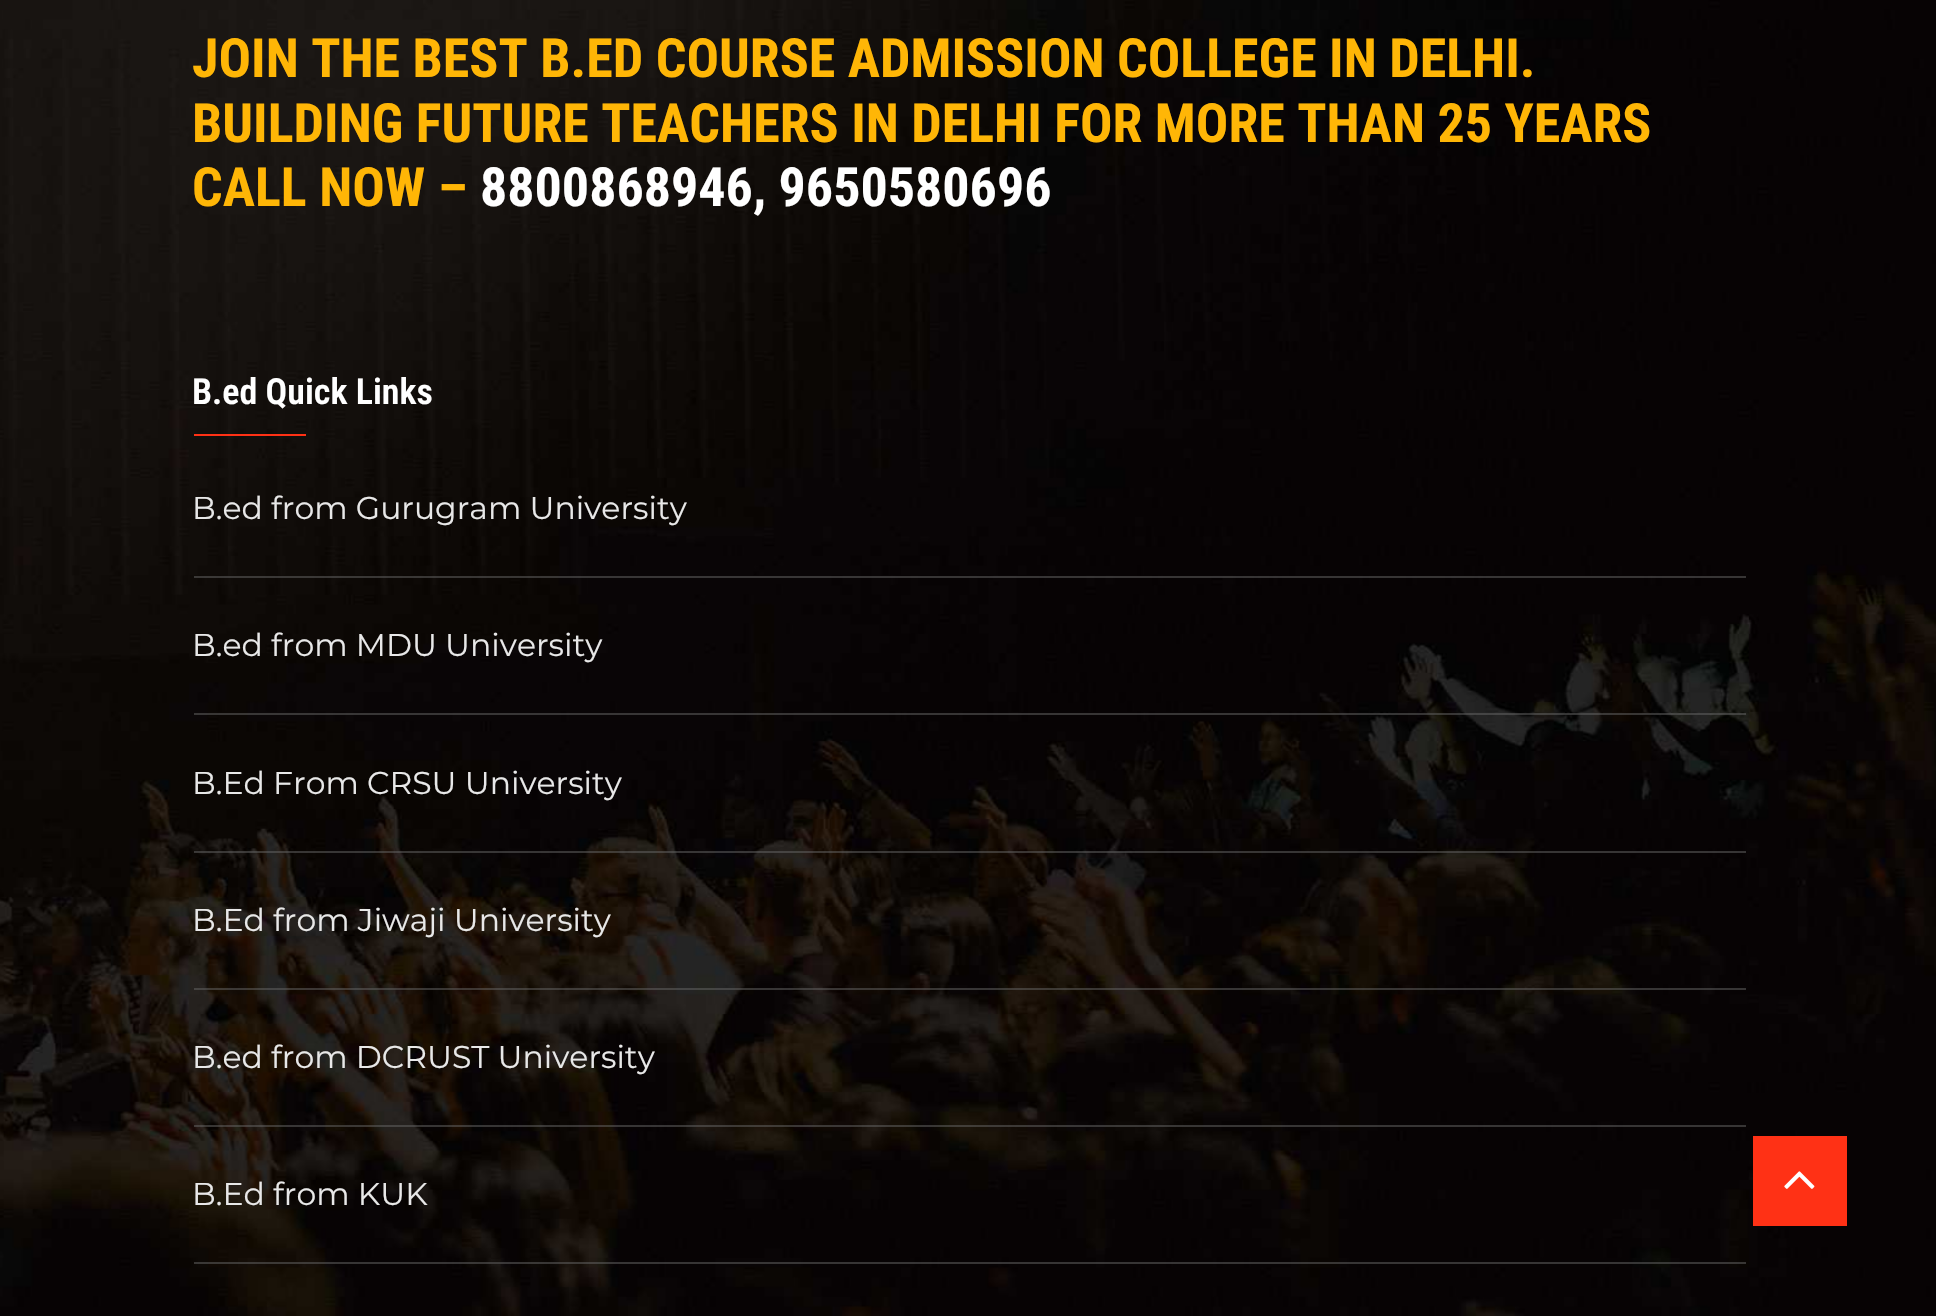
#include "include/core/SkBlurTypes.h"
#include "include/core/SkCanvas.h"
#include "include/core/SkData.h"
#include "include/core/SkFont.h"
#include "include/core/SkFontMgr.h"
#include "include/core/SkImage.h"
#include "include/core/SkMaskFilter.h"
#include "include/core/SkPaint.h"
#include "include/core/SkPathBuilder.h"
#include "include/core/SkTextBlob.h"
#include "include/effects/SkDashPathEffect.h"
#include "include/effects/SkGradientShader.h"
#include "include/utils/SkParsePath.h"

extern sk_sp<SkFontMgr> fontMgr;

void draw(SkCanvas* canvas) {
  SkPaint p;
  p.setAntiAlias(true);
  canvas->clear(SK_ColorWHITE);
  canvas->drawImageRect(SkImages::DeferredFromEncodedData(SkData::MakeFromFileName("images/1.png")), SkRect::MakeLTRB(0, 0, 1936, 1316), SkSamplingOptions());
  p.setColor(SkColorSetRGB(255, 49, 21));
  canvas->drawRect(SkRect::MakeLTRB(194, 434, 306, 436), p);
  p.setColor(SkColorSetARGB(128, 102, 102, 102));
  canvas->drawRect(SkRect::MakeLTRB(194, 576, 1746, 578), p);
  canvas->drawRect(SkRect::MakeLTRB(194, 713, 1746, 715), p);
  canvas->drawRect(SkRect::MakeLTRB(194, 851, 1746, 853), p);
  canvas->drawRect(SkRect::MakeLTRB(194, 988, 1746, 990), p);
  canvas->drawRect(SkRect::MakeLTRB(194, 1125, 1746, 1127), p);
  canvas->drawRect(SkRect::MakeLTRB(194, 1262, 1746, 1264), p);
  p.setColor(SkColorSetRGB(255, 49, 21));
  canvas->drawRect(SkRect::MakeLTRB(1753, 1136, 1847, 1226), p);
  canvas->drawImageRect(SkImages::DeferredFromEncodedData(SkData::MakeFromFileName("images/2.png")), SkRect::MakeLTRB(1784, 1171, 1815, 1189), SkSamplingOptions());
  SkFont font1(fontMgr->matchFamilyStyle("Roboto Condensed", SkFontStyle::Bold()), 54);
  font1.setSubpixel(true);
  p.setColor(SkColorSetRGB(255, 182, 6));
  canvas->drawString("JOIN THE BEST B.ED COURSE ADMISSION COLLEGE IN DELHI.", 192, 77, font1, p);
  canvas->drawString("BUILDING FUTURE TEACHERS IN DELHI FOR MORE THAN 25 YEARS", 192, 142, font1, p);
  canvas->drawString("CALL NOW –", 192, 206, font1, p);
  p.setColor(SK_ColorWHITE);
  canvas->drawString("8800868946, 9650580696", 480, 206, font1, p);
  SkFont font2(fontMgr->matchFamilyStyle("Roboto Condensed", SkFontStyle(600, SkFontStyle::kNormal_Width, SkFontStyle::kUpright_Slant)), 36);
  font2.setSubpixel(true);
  canvas->drawString("B.ed Quick Links", 192, 404, font2, p);
  SkFont font3(fontMgr->matchFamilyStyle("Montserrat", SkFontStyle::Normal()), 31.5f);
  font3.setSubpixel(true);
  p.setColor(SkColorSetRGB(232, 232, 232));
  canvas->drawString("B.ed from Gurugram University", 192, 519, font3, p);
  canvas->drawString("B.ed from MDU University", 192, 656, font3, p);
  canvas->drawString("B.Ed From CRSU University", 192, 794, font3, p);
  canvas->drawString("B.Ed from Jiwaji University", 192, 931, font3, p);
  canvas->drawString("B.ed from DCRUST University", 192, 1068, font3, p);
  canvas->drawString("B.Ed from KUK", 192, 1205, font3, p);
}
